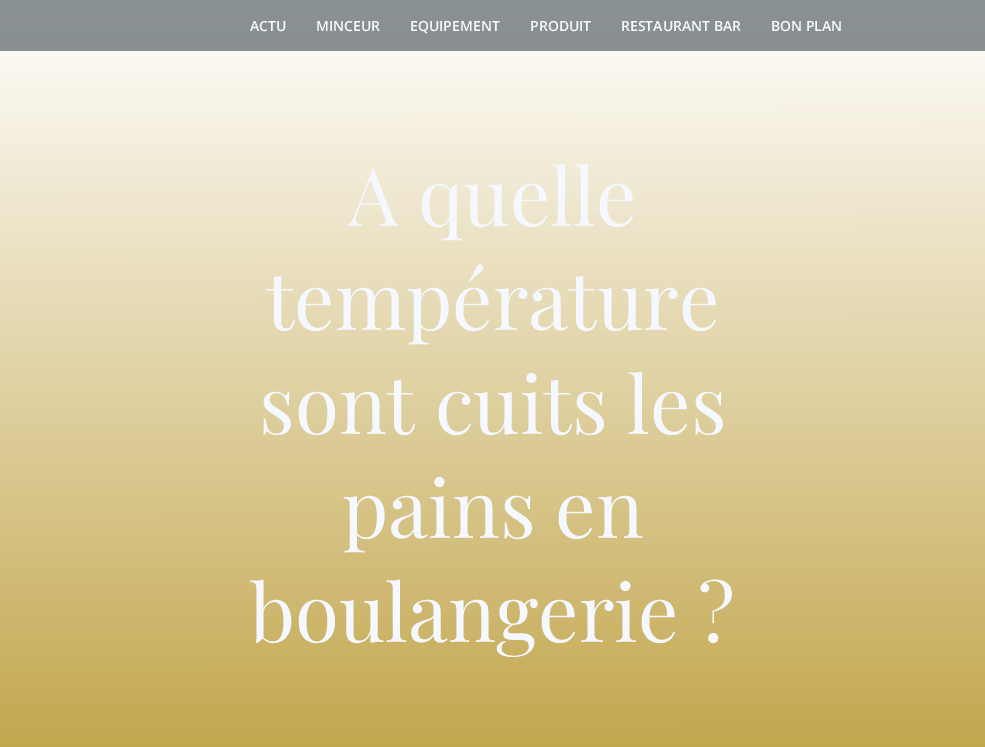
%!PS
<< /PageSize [985 747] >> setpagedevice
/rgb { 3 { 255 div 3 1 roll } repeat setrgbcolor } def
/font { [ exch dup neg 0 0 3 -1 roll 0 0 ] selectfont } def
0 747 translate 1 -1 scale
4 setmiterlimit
255 255 255 rgb
0 0 985 747 rectfill
gsave 0 51 moveto 985 51 lineto 985 747 lineto 0 747 lineto closepath clip newpath
<< /ShadingType 2 /ColorSpace /DeviceRGB /Coords [492 -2 493 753] /Extend [true true] /Function << /FunctionType 2 /Domain [0 1] /C0 [1 1 1] /C1 [0.765 0.651 0.302] /N 1 >> >> shfill grestore
gsave 0 0 moveto 985 0 lineto 985 51 lineto 0 51 lineto closepath clip newpath
<< /ShadingType 2 /ColorSpace /DeviceRGB /Coords [492 -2 493 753] /Extend [true true] /Function << /FunctionType 2 /Domain [0 1] /C0 [0.545 0.573 0.584] /C1 [0.427 0.4 0.235] /N 1 >> >> shfill grestore
/OpenSans-SemiBold 14 font
245 249 255 rgb
[
  [(ACTU) 250 31]
  [(MINCEUR) 316 31]
  [(EQUIPEMENT) 410 31]
  [(PRODUIT) 530 31]
  [(RESTAURANT BAR) 621 31]
  [(BON PLAN) 771 31]
] { aload pop moveto show } forall
/PlayfairDisplay-Regular 80 font
[
  [(A quelle) 348 226]
  [(température) 266 330]
  [(sont cuits les) 259 434]
  [(pains en) 342 538]
  [(boulangerie ?) 250 642]
] { aload pop moveto show } forall
showpage
